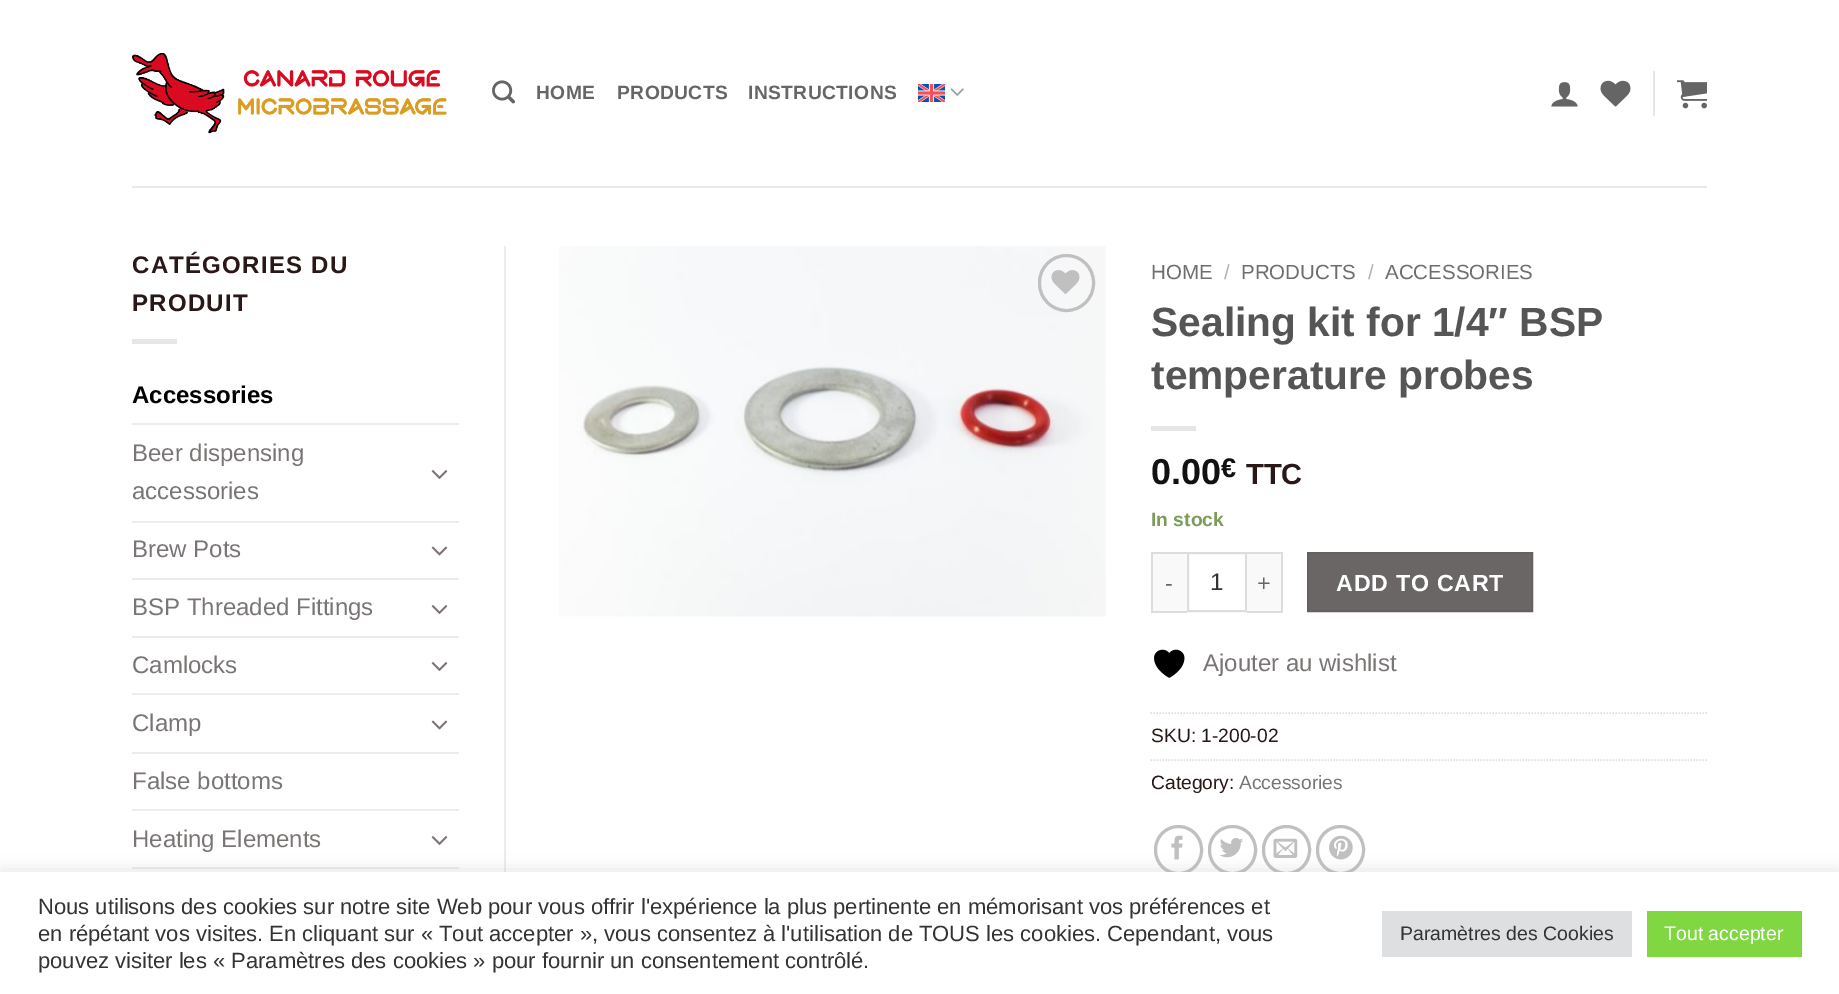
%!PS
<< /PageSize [1839 994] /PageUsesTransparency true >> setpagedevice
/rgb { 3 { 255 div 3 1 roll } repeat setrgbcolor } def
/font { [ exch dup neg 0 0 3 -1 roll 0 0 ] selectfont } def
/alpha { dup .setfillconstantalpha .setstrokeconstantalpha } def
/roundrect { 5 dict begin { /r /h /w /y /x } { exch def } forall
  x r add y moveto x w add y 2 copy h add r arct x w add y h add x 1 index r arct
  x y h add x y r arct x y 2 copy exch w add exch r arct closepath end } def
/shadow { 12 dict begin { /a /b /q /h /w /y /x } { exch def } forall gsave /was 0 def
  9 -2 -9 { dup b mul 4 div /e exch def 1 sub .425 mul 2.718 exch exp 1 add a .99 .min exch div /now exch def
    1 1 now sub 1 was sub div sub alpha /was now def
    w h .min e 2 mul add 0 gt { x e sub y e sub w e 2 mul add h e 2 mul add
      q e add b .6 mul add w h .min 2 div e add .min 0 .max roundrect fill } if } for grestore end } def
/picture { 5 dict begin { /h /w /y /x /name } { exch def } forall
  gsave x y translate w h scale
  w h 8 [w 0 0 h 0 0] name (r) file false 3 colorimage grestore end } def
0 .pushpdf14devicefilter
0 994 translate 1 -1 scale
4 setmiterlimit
255 255 255 rgb
0 0 1839 994 rectfill
(img/1.rgb) 132 53 315 81 picture
(img/2.rgb) 492 80 23 24 picture
(img/3.rgb) 918 84 27 18 picture
(img/4.rgb) 950 88 14 8 picture
(img/5.rgb) 1551 82 27 25 picture
(img/6.rgb) 1600 80 31 27 picture
230 230 230 rgb
1653 71 2 45 rectfill
(img/7.rgb) 1677 80 30 29 picture
[
  [132 186 1575 2 234 232 232]
  [132 339 45 5 230 230 230]
  [132 423 327 2 236 236 236]
] { aload pop rgb rectfill } forall
(img/8.rgb) 431 470 17 9 picture
132 521 327 2 rectfill
(img/9.rgb) 431 546 17 10 picture
132 578 327 2 rectfill
(img/8.rgb) 431 605 17 9 picture
132 636 327 2 rectfill
(img/8.rgb) 431 662 17 9 picture
132 693 327 2 rectfill
(img/9.rgb) 431 720 17 10 picture
132 752 327 2 rectfill
132 809 327 2 rectfill
(img/8.rgb) 431 836 17 9 picture
132 867 327 2 rectfill
504 246 2 626 rectfill
(img/10.rgb) 559 246 547 371 picture
192 192 192 rgb
3 setlinewidth
1039.5 255.5 54 55 27 roundrect stroke
(img/11.rgb) 1051 270 29 24 picture
[
  [1151 426 45 5 230 230 230]
  [1153 554 34 57 249 249 249]
  [1151 552 36 2 221 221 221]
  [1151 611 36 2 221 221 221]
  [1151 552 2 60 221 221 221]
] { aload pop rgb rectfill } forall
2 setlinewidth
1188 553 58 58 rectstroke
[
  [1247 554 34 57 249 249 249]
  [1247 552 36 2 221 221 221]
  [1281 552 2 60 221 221 221]
  [1247 611 36 2 221 221 221]
] { aload pop rgb rectfill } forall
106 102 102 rgb
1308 553 moveto 1532 553 lineto 1532 611 lineto 1308 611 lineto closepath gsave fill grestore
101 97 97 rgb
stroke
(img/12.rgb) 1154 649 31 29 picture
221 221 221 rgb
1.5 setlinewidth
[1.5 1.5] 0 setdash
1150.5 713 moveto 1707 713 lineto stroke
1150.5 760 moveto 1707 760 lineto stroke
192 192 192 rgb
3 setlinewidth
[] 0 setdash
1155.5 826.5 46 47 23 roundrect stroke
(img/13.rgb) 1171 835 12 25 picture
1209.5 826.5 46 47 23 roundrect stroke
(img/14.rgb) 1220 838 23 20 picture
1263.5 826.5 46 47 23 roundrect stroke
(img/15.rgb) 1273 838 25 20 picture
1317.5 826.5 46 47 23 roundrect stroke
(img/16.rgb) 1329 835 24 25 picture
172 171 171 rgb
0 870 1839 123 0 7.5 0.3 shadow
[
  [0 872 1839 122 255 255 255]
  [1382 911 250 46 222 223 224]
  [1647 911 155 46 129 215 66]
] { aload pop rgb rectfill } forall
/LiberationSans-Bold 19.25 font
102 102 102 rgb
536 99 moveto 0.4 0 (HOME) ashow
617 99 moveto 0.4 0 (PRODUCTS) ashow
748 99 moveto 0.4 0 (INSTRUCTIONS) ashow
/LiberationSans-Bold 24 font
42 23 23 rgb
132 273 moveto 1.25 0 (CATÉGORIES DU) ashow
132 311 moveto 1.25 0 (PRODUIT) ashow
0 0 0 rgb
132 403 moveto (Accessories) show
/LiberationSans-Regular 24 font
122 117 117 rgb
[
  [(Beer dispensing) 132 461]
  [(accessories) 132 499]
  [(Brew Pots) 132 557]
  [(BSP Threaded Fittings) 132 615]
  [(Camlocks) 132 673]
  [(Clamp) 132 731]
  [(False bottoms) 132 789]
  [(Heating Elements) 132 847]
] { aload pop moveto show } forall
/LiberationSans-Regular 20.5 font
110 110 110 rgb
1151 279 moveto (HOME) show
178 178 178 rgb
1224 279 moveto (/) show
110 110 110 rgb
1241 279 moveto (PRODUCTS) show
178 178 178 rgb
1368 279 moveto (/) show
110 110 110 rgb
1385 279 moveto (ACCESSORIES) show
/LiberationSans-Bold 40.75 font
85 85 85 rgb
1151 336 moveto (Sealing kit for 1/4″ BSP) show
1151 389 moveto (temperature probes) show
/LiberationSans-Bold 36 font
17 17 17 rgb
1151 484 moveto (0.00) show
/LiberationSans-Bold 27 font
1221 477 moveto (€) show
/LiberationSans-Bold 29 font
42 23 23 rgb
1246 484 moveto (TTC) show
/LiberationSans-Bold 19.25 font
122 156 89 rgb
1151 526 moveto (In stock) show
/LiberationSans-Regular 23.25 font
102 102 102 rgb
1165 591 moveto 0.75 0 (-) ashow
/LiberationSans-Regular 24 font
51 51 51 rgb
1210 590 moveto (1) show
/LiberationSans-Regular 23.25 font
102 102 102 rgb
1257 591 moveto 0.75 0 (+) ashow
/LiberationSans-Bold 23.25 font
255 255 255 rgb
1336 591 moveto 0.75 0 (ADD TO CART) ashow
/LiberationSans-Regular 24 font
122 117 117 rgb
1203 671 moveto (Ajouter au wishlist) show
/LiberationSans-Regular 19.25 font
42 23 23 rgb
1151 742 moveto (SKU: 1-200-02) show
1151 789 moveto (Category:) show
122 117 117 rgb
1239 789 moveto (Accessories) show
/LiberationSans-Regular 22 font
51 51 51 rgb
[
  [(Nous utilisons des cookies sur notre site Web pour vous offrir l'expérience la plus pertinente en mémorisant vos préférences et) 38 914]
  [(en répétant vos visites. En cliquant sur « Tout accepter », vous consentez à l'utilisation de TOUS les cookies. Cependant, vous) 38 941]
  [(pouvez visiter les « Paramètres des cookies » pour fournir un consentement contrôlé.) 38 968]
] { aload pop moveto show } forall
/LiberationSans-Regular 19.5 font
1400 940 moveto (Paramètres des Cookies) show
255 255 255 rgb
1664 940 moveto (Tout accepter) show
.poppdf14devicefilter showpage
